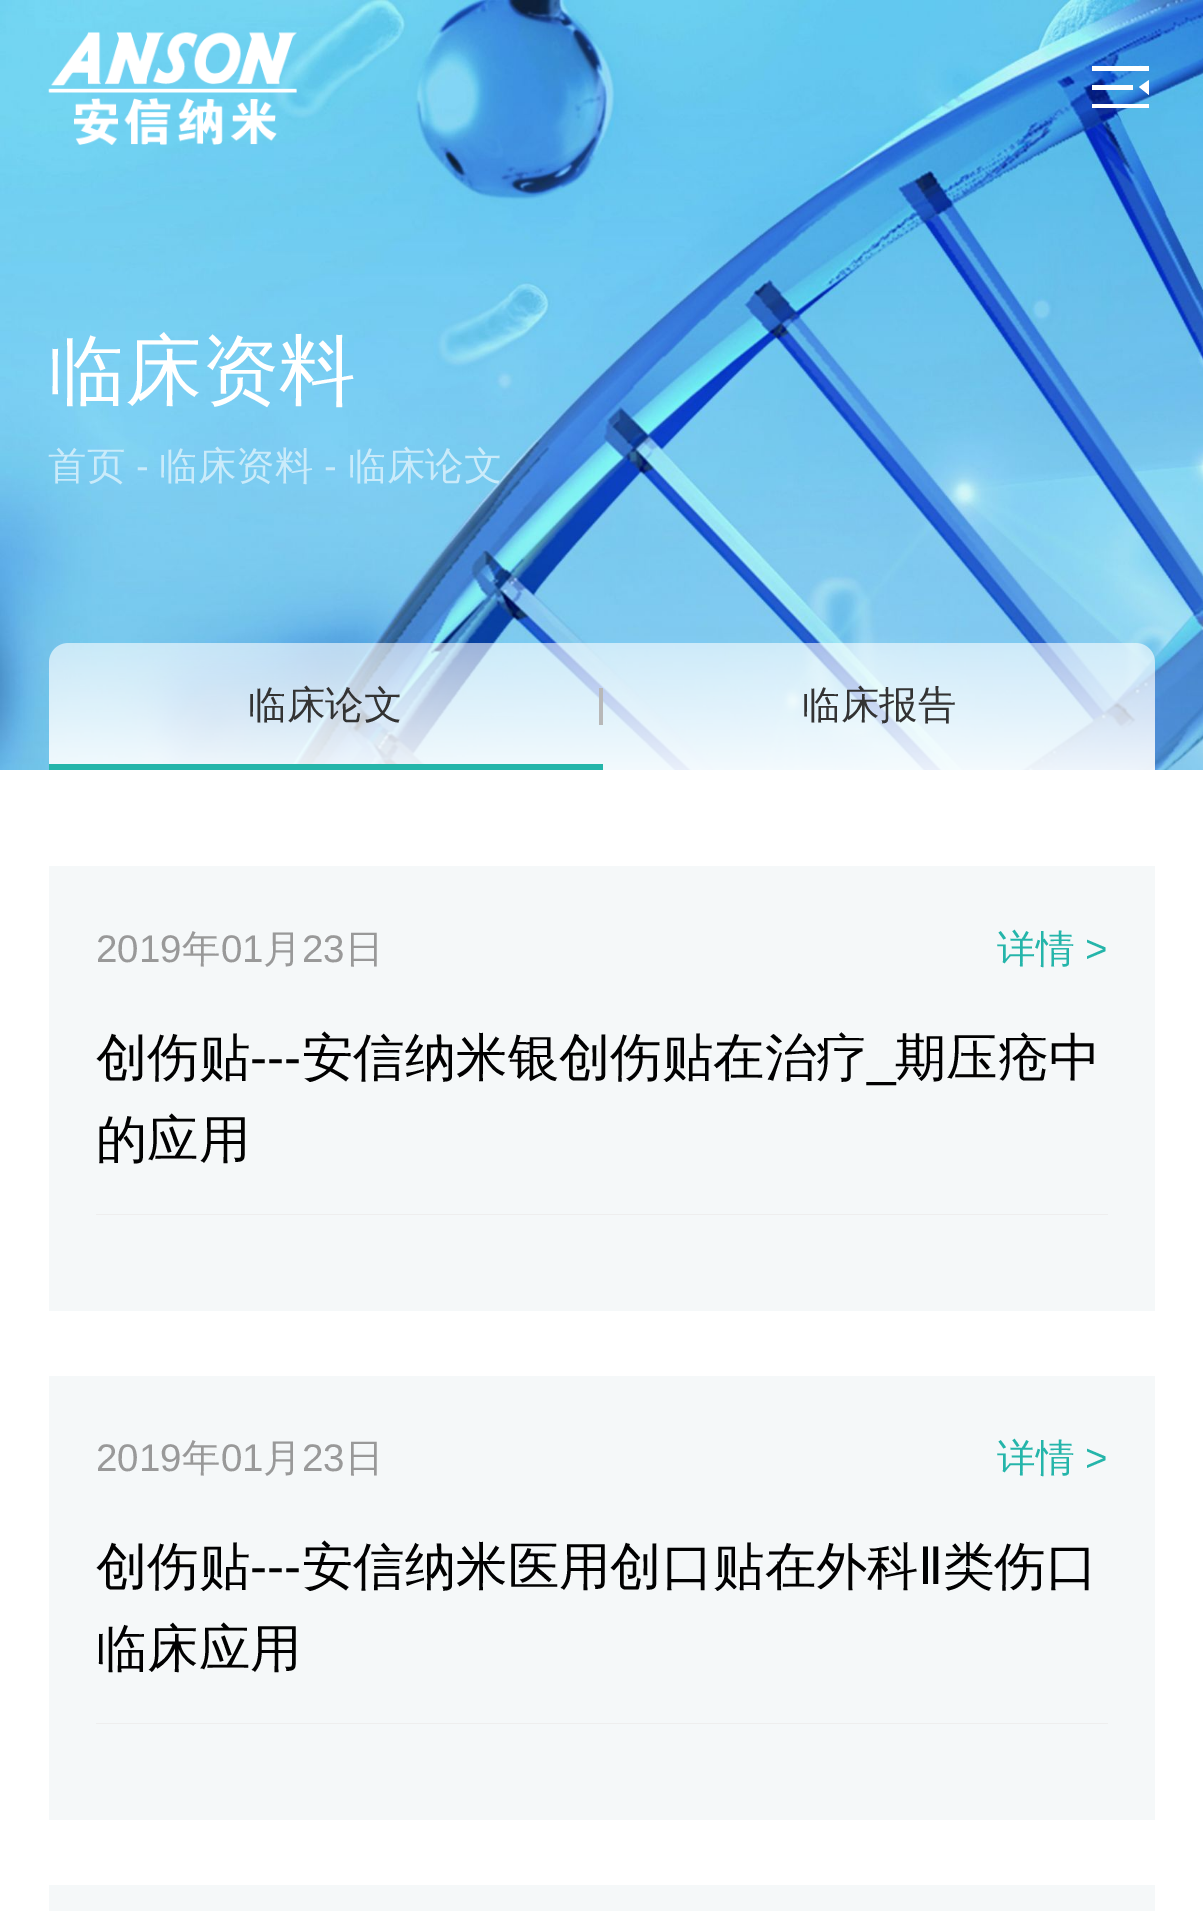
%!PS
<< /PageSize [1203 1911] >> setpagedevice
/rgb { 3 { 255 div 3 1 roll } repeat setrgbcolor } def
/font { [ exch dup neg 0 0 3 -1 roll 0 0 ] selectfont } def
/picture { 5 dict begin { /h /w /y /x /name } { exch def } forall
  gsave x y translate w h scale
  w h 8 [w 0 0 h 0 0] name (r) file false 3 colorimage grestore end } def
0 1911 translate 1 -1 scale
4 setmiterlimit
255 255 255 rgb
0 0 1203 1911 rectfill
(img/2.rgb) 0 0 1203 770 picture
(img/1.rgb) 48 32 249 113 picture
1092 66 moveto 1149 66 lineto 1149 71 lineto 1092 71 lineto closepath 1092 104 moveto 1149 104 lineto 1149 108 lineto 1092 108 lineto closepath 1092 85 moveto 1133 85 lineto 1133 90 lineto 1092 90 lineto closepath 1139 87 moveto 1149 95 lineto 1149 80 lineto closepath fill
[
  [49 764 554 6 36 181 170]
  [599 688 4 37 184 184 184]
  [49 866 1106 445 245 248 249]
  [96 1214 1012 1 238 238 238]
  [49 1376 1106 444 245 248 249]
  [96 1723 1012 1 238 238 238]
  [49 1885 1106 26 245 248 249]
] { aload pop rgb rectfill } forall
/WenQuanYiZenHei-Medium 77 font
255 255 255 rgb
48 397 moveto (临床资料) show
/WenQuanYiZenHei-Medium 38.5 font
202 235 250 rgb
48 479 moveto (首页) show
/LiberationSans-Regular 38.5 font
136 479 moveto (-) show
/WenQuanYiZenHei-Medium 38.5 font
159 479 moveto (临床资料) show
/LiberationSans-Regular 38.5 font
324 479 moveto (-) show
/WenQuanYiZenHei-Medium 38.5 font
348 479 moveto (临床论文) show
51 51 51 rgb
248 718 moveto (临床论文) show
802 718 moveto (临床报告) show
/LiberationSans-Regular 38.5 font
153 153 153 rgb
96 962 moveto (2019) show
/WenQuanYiZenHei-Medium 38.5 font
182 962 moveto (年) show
/LiberationSans-Regular 38.5 font
221 962 moveto (01) show
/WenQuanYiZenHei-Medium 38.5 font
263 962 moveto (月) show
/LiberationSans-Regular 38.5 font
302 962 moveto (23) show
/WenQuanYiZenHei-Medium 38.5 font
345 962 moveto (日) show
36 181 170 rgb
997 962 moveto (详情) show
/LiberationSans-Regular 38.5 font
1085 962 moveto (>) show
/WenQuanYiZenHei-Medium 51.4 font
1 1 1 rgb
96 1075 moveto (创伤贴) show
/LiberationSans-Regular 51.4 font
250 1075 moveto (---) show
/WenQuanYiZenHei-Medium 51.4 font
302 1075 moveto (安信纳米银创伤贴在治疗) show
895 1075 moveto (期压疮中) show
/LiberationSans-Regular 51.4 font
867 1075 moveto (_) show
/WenQuanYiZenHei-Medium 51.4 font
96 1157 moveto (的应用) show
/LiberationSans-Regular 38.5 font
153 153 153 rgb
96 1471 moveto (2019) show
/WenQuanYiZenHei-Medium 38.5 font
182 1471 moveto (年) show
/LiberationSans-Regular 38.5 font
221 1471 moveto (01) show
/WenQuanYiZenHei-Medium 38.5 font
263 1471 moveto (月) show
/LiberationSans-Regular 38.5 font
302 1471 moveto (23) show
/WenQuanYiZenHei-Medium 38.5 font
345 1471 moveto (日) show
36 181 170 rgb
997 1471 moveto (详情) show
/LiberationSans-Regular 38.5 font
1085 1471 moveto (>) show
/WenQuanYiZenHei-Medium 51.4 font
1 1 1 rgb
96 1584 moveto (创伤贴) show
/LiberationSans-Regular 51.4 font
250 1584 moveto (---) show
/WenQuanYiZenHei-Medium 51.4 font
302 1584 moveto (安信纳米医用创口贴在外科) show
/DejaVuSans-Regular 51.4 font
918 1584 moveto (Ⅱ) show
/WenQuanYiZenHei-Medium 51.4 font
943 1584 moveto (类伤口) show
96 1666 moveto (临床应用) show
showpage
